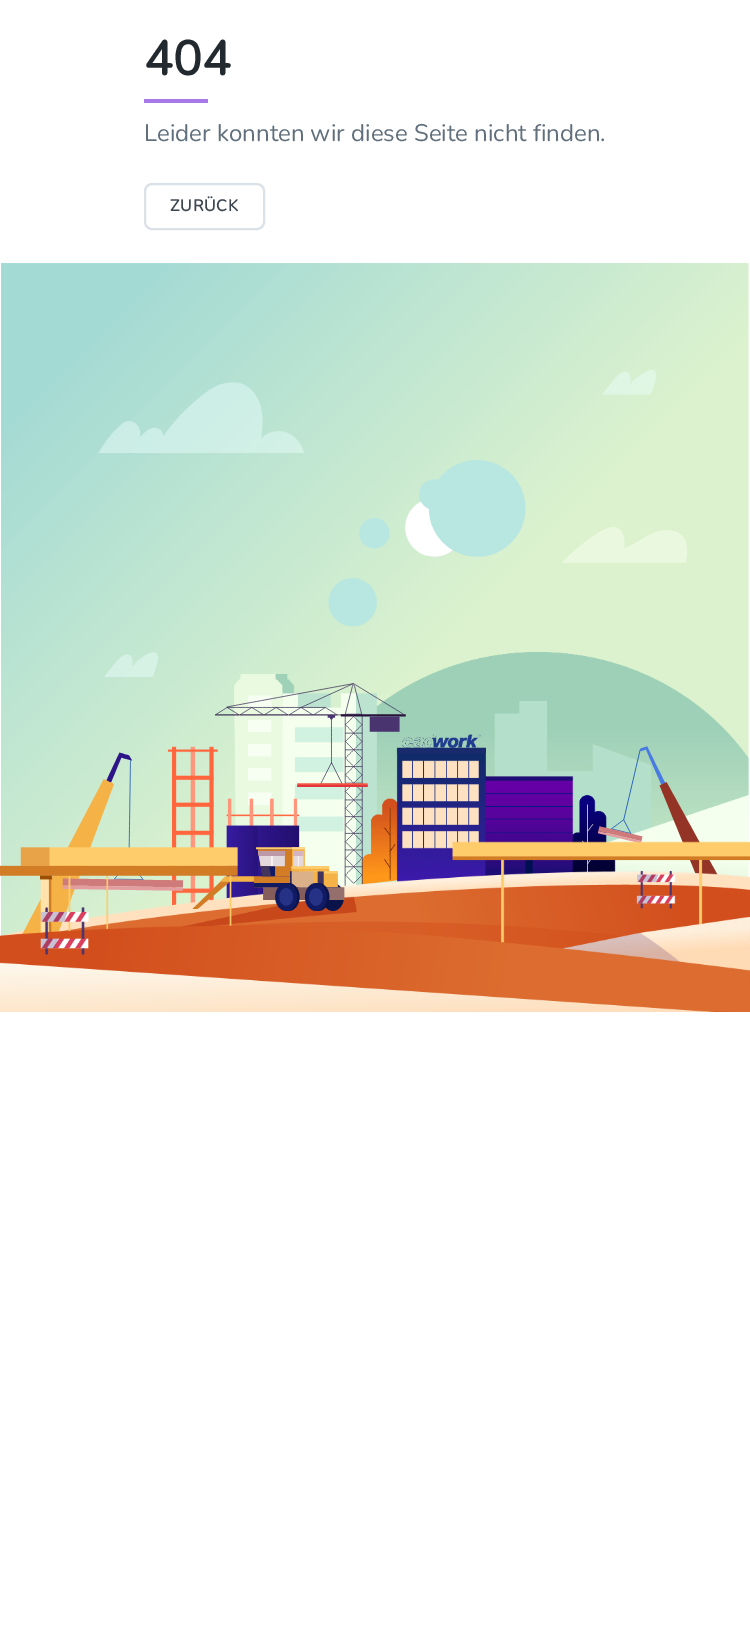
%!PS
<< /PageSize [750 1643] >> setpagedevice
/rgb { 3 { 255 div 3 1 roll } repeat setrgbcolor } def
/font { [ exch dup neg 0 0 3 -1 roll 0 0 ] selectfont } def
/roundrect { 5 dict begin { /r /h /w /y /x } { exch def } forall
  x r add y moveto x w add y 2 copy h add r arct x w add y h add x 1 index r arct
  x y h add x y r arct x y 2 copy exch w add exch r arct closepath end } def
/picture { 5 dict begin { /h /w /y /x /name } { exch def } forall
  gsave x y translate w h scale
  w h 8 [w 0 0 h 0 0] name (r) file false 3 colorimage grestore end } def
0 1643 translate 1 -1 scale
4 setmiterlimit
255 255 255 rgb
0 0 750 1643 rectfill
167 121 233 rgb
144 99 64 4 rectfill
218 225 231 rgb
2 setlinewidth
145 184 119 45 7 roundrect stroke
(img/1.rgb) 0 263 750 749 picture
/Nunito-Bold 48 font
34 41 47 rgb
144 75 moveto (404) show
/Nunito-ExtraLight 24 font
96 111 123 rgb
144 141 moveto (Leider konnten wir diese Seite nicht finden.) show
/Nunito-Bold 16 font
61 72 82 rgb
170 211 moveto 0.75 0 (ZURÜCK) ashow
showpage
